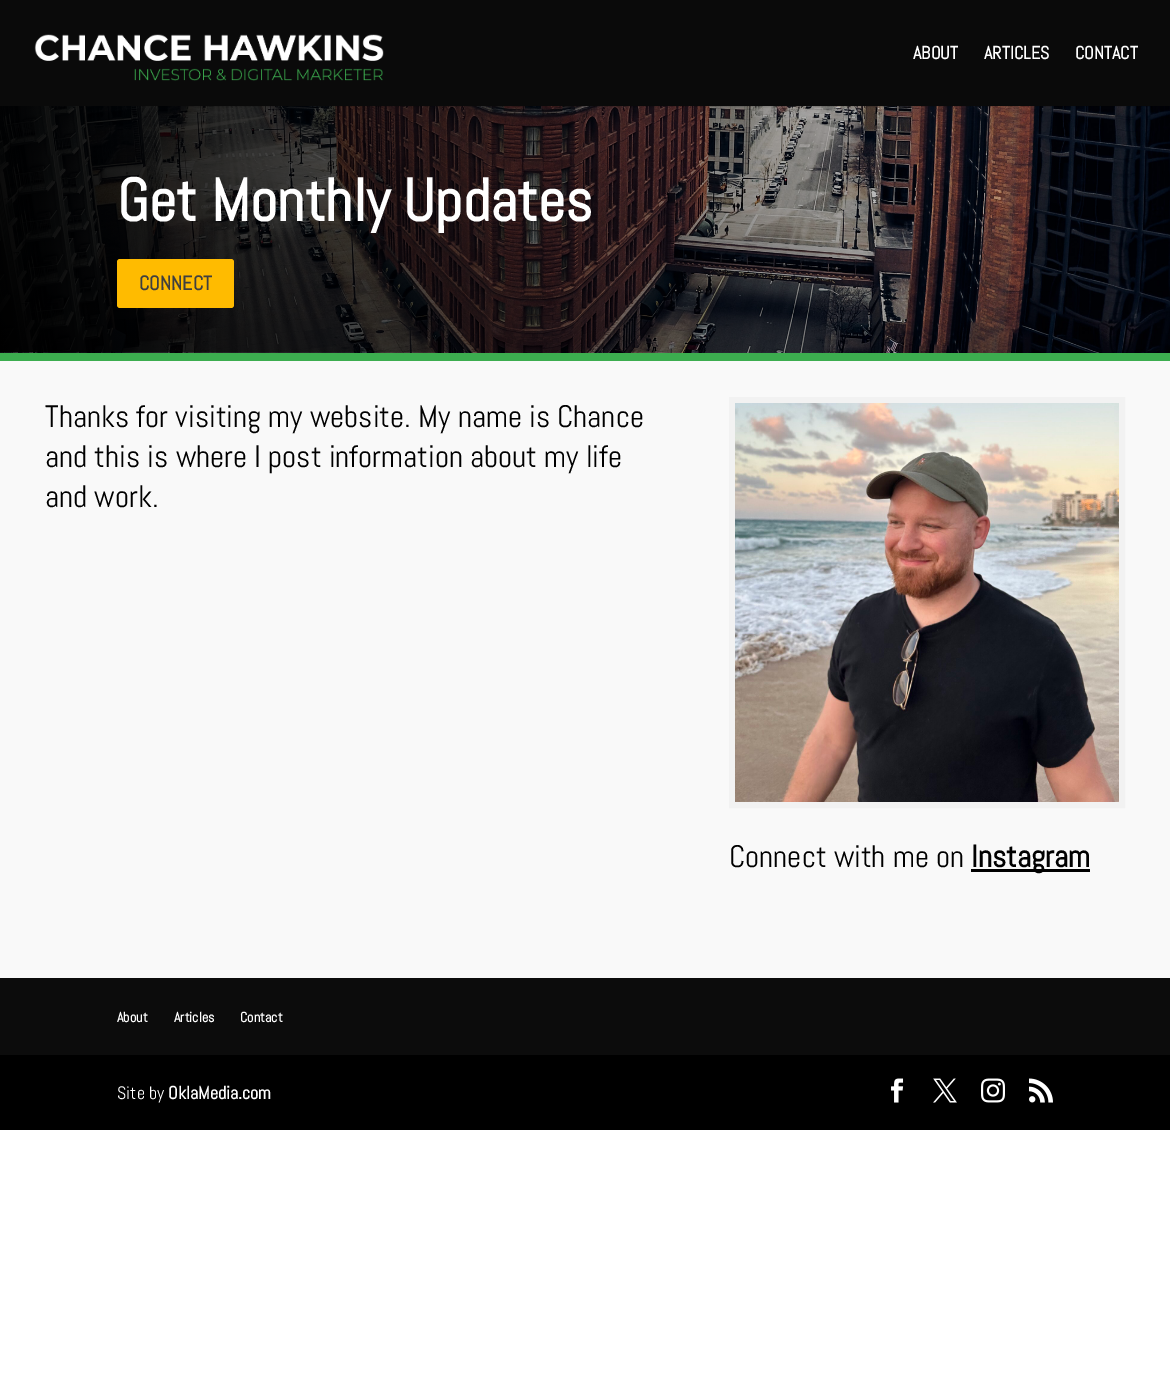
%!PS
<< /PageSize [1170 1374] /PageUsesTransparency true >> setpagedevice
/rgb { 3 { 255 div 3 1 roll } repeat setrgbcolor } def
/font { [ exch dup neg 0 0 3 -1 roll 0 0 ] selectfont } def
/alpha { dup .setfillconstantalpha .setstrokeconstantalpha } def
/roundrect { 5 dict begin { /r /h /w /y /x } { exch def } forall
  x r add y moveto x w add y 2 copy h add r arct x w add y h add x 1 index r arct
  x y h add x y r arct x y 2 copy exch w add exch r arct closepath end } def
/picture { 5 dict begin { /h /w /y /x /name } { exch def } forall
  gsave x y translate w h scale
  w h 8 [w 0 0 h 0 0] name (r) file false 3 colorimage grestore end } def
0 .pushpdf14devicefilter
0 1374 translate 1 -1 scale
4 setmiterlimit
255 255 255 rgb
0 0 1170 1374 rectfill
(img/2.rgb) 0 106 1170 247 picture
0.1 alpha
0 0 0 rgb
141 106 1009 1 rectfill
1 alpha
10 10 10 rgb
0 0 1170 106 rectfill
(img/1.rgb) 34 34 350 47 picture
255 187 0 rgb
117 259 117 49 3 roundrect fill
249 249 249 rgb
0 361 1170 617 rectfill
60 173 79 rgb
0 353 1170 8 rectfill
242 242 242 rgb
6 setlinewidth
732 400 390 405 rectstroke
(img/3.rgb) 735 403 384 399 picture
[
  [971 869 119 3 0 0 0]
  [0 978 1170 77 12 12 12]
  [0 1055 1170 75 0 0 0]
] { aload pop rgb rectfill } forall
(img/4.rgb) 891 1078 13 25 picture
(img/5.rgb) 933 1078 24 25 picture
(img/6.rgb) 981 1078 24 25 picture
(img/7.rgb) 1029 1078 24 25 picture
/Abel-Bold 18 font
255 255 255 rgb
[
  [(ABOUT) 913 59]
  [(ARTICLES) 984 59]
  [(CONTACT) 1075 59]
] { aload pop moveto show } forall
/Abel-Bold 60 font
117 221 moveto (Get Monthly Updates) show
/Abel-Bold 20 font
63 63 63 rgb
139 290 moveto (CONNECT) show
/Abel-Regular 31 font
0 0 0 rgb
[
  [(Thanks for visiting my website. My name is Chance) 45 427]
  [(and this is where I post information about my life) 45 467]
  [(and work.) 45 507]
  [(Connect with me on) 729 867]
] { aload pop moveto show } forall
/Abel-Bold 31 font
971 867 moveto (Instagram) show
/Abel-Bold 14 font
255 255 255 rgb
[
  [(About) 117 1022]
  [(Articles) 174 1022]
  [(Contact) 240 1022]
] { aload pop moveto show } forall
/Abel-Regular 18 font
117 1099 moveto (Site by) show
/Abel-Bold 18 font
168 1099 moveto (OklaMedia.com) show
.poppdf14devicefilter showpage
